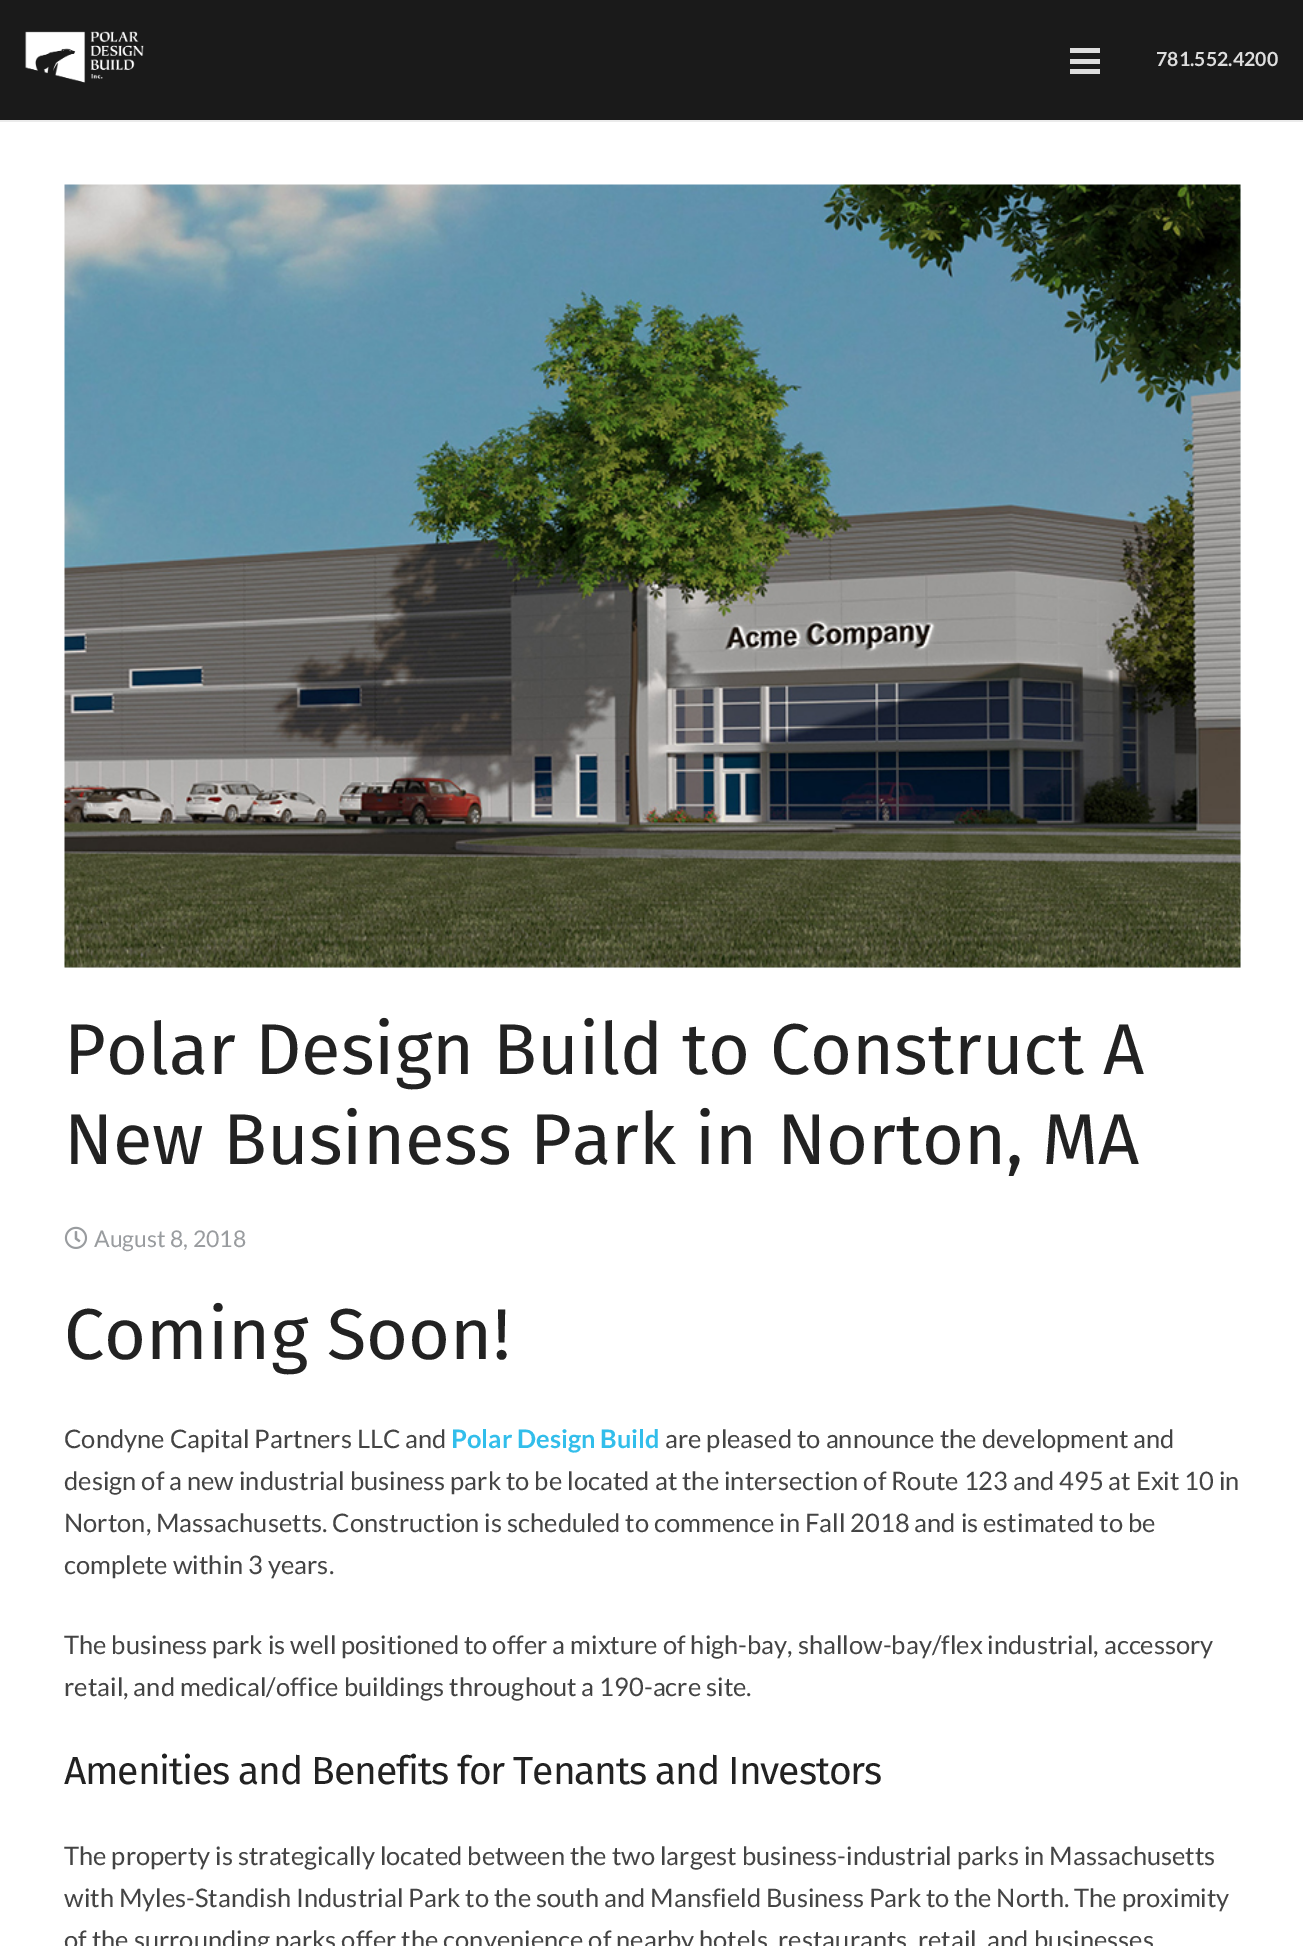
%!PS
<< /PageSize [1303 1946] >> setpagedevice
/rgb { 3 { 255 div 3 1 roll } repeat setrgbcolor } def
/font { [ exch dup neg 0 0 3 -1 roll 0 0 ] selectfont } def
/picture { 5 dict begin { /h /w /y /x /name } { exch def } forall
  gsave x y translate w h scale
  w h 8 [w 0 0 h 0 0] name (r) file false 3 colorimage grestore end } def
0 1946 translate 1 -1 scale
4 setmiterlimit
255 255 255 rgb
0 0 1303 1946 rectfill
235 235 235 rgb
0 120 moveto 0 122 lineto 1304 122 lineto 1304 2 lineto 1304 120 lineto closepath fill
26 26 26 rgb
0 0 1303 120 rectfill
(img/1.rgb) 25 31 119 52 picture
[
  [1070 59 30 5 221 221 221]
  [1070 48 30 5 221 221 221]
  [1070 69 30 5 221 221 221]
  [65 185 1176 783 237 241 242]
] { aload pop rgb rectfill } forall
(img/2.rgb) 64 184 1177 784 picture
(img/3.rgb) 64 1226 24 23 picture
/Lato-Bold 19.5 font
221 221 221 rgb
1156 66 moveto (781.552.4200) show
/FiraSans-Regular 72 font
34 34 34 rgb
64 1074 moveto (Polar Design Build to Construct A) show
64 1164 moveto (New Business Park in Norton, MA) show
/Lato-Regular 23 font
153 156 159 rgb
94 1247 moveto (August 8, 2018) show
/FiraSans-Regular 72 font
34 34 34 rgb
64 1359 moveto (Coming Soon!) show
/Lato-Regular 25.5 font
68 68 68 rgb
64 1448 moveto (Condyne Capital Partners LLC and) show
/Lato-Bold 25.5 font
50 190 235 rgb
451 1448 moveto (Polar Design Build) show
/Lato-Regular 25.5 font
68 68 68 rgb
[
  [(are pleased to announce the development and) 665 1448]
  [(design of a new industrial business park to be located at the intersection of Route 123 and 495 at Exit 10 in) 64 1490]
  [(Norton, Massachusetts. Construction is scheduled to commence in Fall 2018 and is estimated to be) 64 1532]
  [(complete within 3 years.) 64 1574]
  [(The business park is well positioned to offer a mixture of high-bay, shallow-bay/flex industrial, accessory) 64 1654]
  [(retail, and medical/office buildings throughout a 190-acre site.) 64 1696]
] { aload pop moveto show } forall
/FiraSans-Regular 39 font
34 34 34 rgb
64 1784 moveto -1.15 0 (Amenities and Benefits for Tenants and Investors) ashow
/Lato-Regular 25.5 font
68 68 68 rgb
[
  [(The property is strategically located between the two largest business-industrial parks in Massachusetts) 64 1865]
  [(with Myles-Standish Industrial Park to the south and Mansfield Business Park to the North. The proximity) 64 1907]
  [(of the surrounding parks offer the convenience of nearby hotels, restaurants, retail, and businesses) 64 1949]
] { aload pop moveto show } forall
showpage
